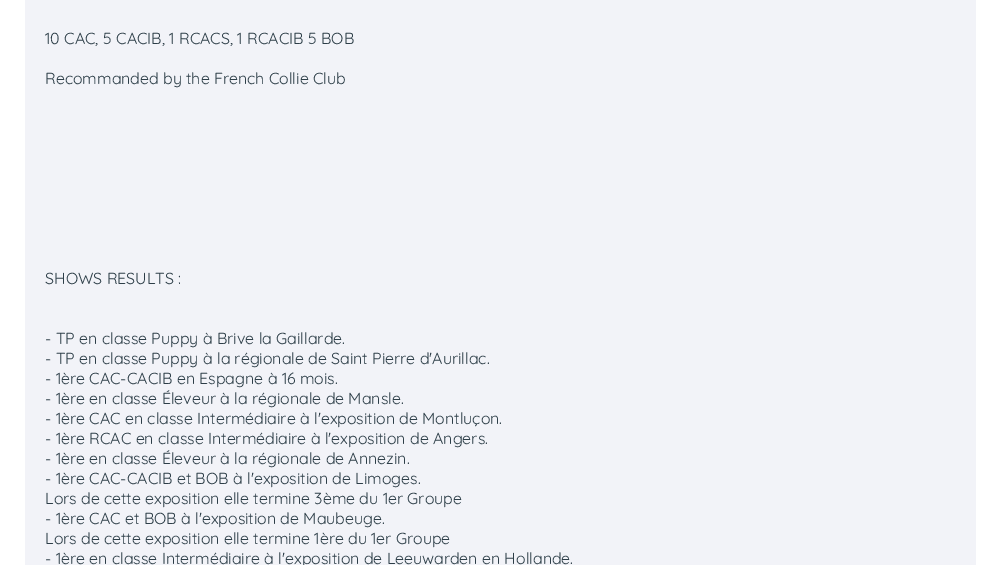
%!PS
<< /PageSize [1001 565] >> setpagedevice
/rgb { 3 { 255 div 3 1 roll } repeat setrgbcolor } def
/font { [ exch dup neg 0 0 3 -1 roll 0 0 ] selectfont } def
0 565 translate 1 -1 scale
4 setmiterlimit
255 255 255 rgb
0 0 1001 565 rectfill
242 243 248 rgb
25 0 951 565 rectfill
/Quicksand-Light 16 font
45 62 72 rgb
[
  [(10 CAC, 5 CACIB, 1 RCACS, 1 RCACIB 5 BOB) 45 44]
  [(Recommanded by the French Collie Club) 45 84]
  [(SHOWS RESULTS :) 45 284]
  [(- TP en classe Puppy à Brive la Gaillarde.) 45 344]
  [(- TP en classe Puppy à la régionale de Saint Pierre d'Aurillac.) 45 364]
  [(- 1ère CAC-CACIB en Espagne à 16 mois.) 45 384]
  [(- 1ère en classe Éleveur à la régionale de Mansle.) 45 404]
  [(- 1ère CAC en classe Intermédiaire à l'exposition de Montluçon.) 45 424]
  [(- 1ère RCAC en classe Intermédiaire à l'exposition de Angers.) 45 444]
  [(- 1ère en classe Éleveur à la régionale de Annezin.) 45 464]
  [(- 1ère CAC-CACIB et BOB à l'exposition de Limoges.) 45 484]
  [(Lors de cette exposition elle termine 3ème du 1er Groupe) 45 504]
  [(- 1ère CAC et BOB à l'exposition de Maubeuge.) 45 524]
  [(Lors de cette exposition elle termine 1ère du 1er Groupe) 45 544]
  [(- 1ère en classe Intermédiaire à l'exposition de Leeuwarden en Hollande.) 45 564]
] { aload pop moveto show } forall
showpage
